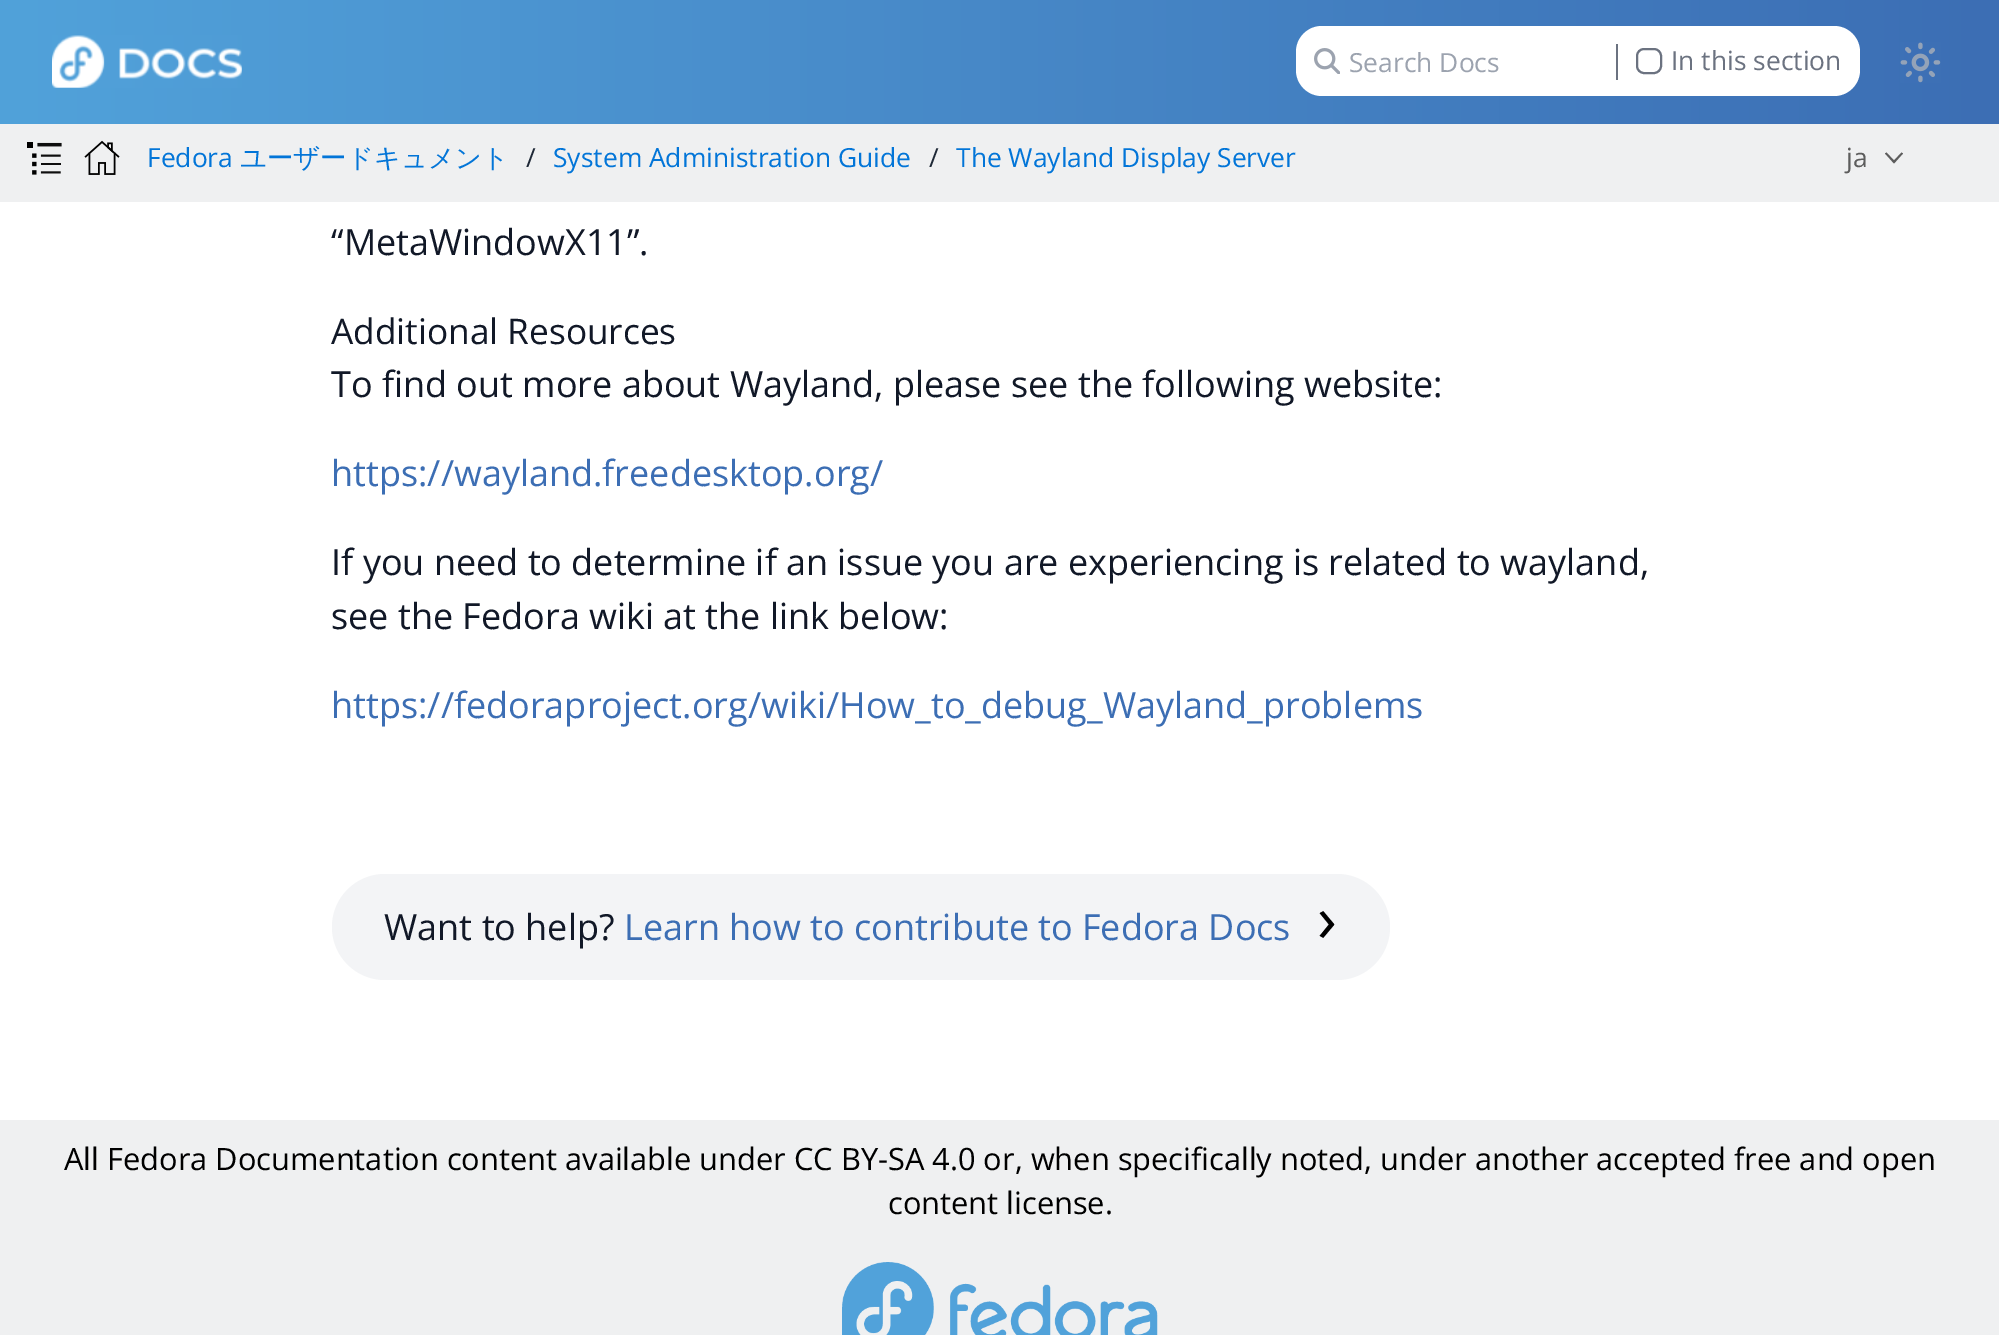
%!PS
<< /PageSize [1999 1335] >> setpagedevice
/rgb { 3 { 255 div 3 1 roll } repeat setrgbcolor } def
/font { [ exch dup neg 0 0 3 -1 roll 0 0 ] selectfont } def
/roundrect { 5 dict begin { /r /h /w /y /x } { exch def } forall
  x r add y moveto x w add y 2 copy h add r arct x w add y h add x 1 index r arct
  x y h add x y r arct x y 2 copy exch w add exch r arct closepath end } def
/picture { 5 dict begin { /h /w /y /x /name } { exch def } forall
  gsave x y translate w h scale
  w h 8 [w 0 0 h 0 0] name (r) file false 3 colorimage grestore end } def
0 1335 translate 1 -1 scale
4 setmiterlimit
255 255 255 rgb
0 0 1999 1335 rectfill
gsave 0 0 moveto 1999 0 lineto 1999 124 lineto 0 124 lineto closepath clip newpath
<< /ShadingType 2 /ColorSpace /DeviceRGB /Coords [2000 62 0 62] /Extend [true true] /Function << /FunctionType 2 /Domain [0 1] /C0 [0.235 0.431 0.706] /C1 [0.318 0.635 0.855] /N 1 >> >> shfill grestore
(img/1.rgb) 52 35 190 53 picture
1296 26 564 70 26 roundrect fill
(img/2.rgb) 1314 48 26 26 picture
107 114 128 rgb
1616 44 2 36 rectfill
2 setlinewidth
1637 49 24 24 7 roundrect stroke
(img/3.rgb) 1900 42 41 41 picture
239 240 241 rgb
0 124 1999 78 rectfill
(img/4.rgb) 27 142 35 33 picture
(img/5.rgb) 84 140 36 35 picture
93 93 93 rgb
1886.5 152.5 moveto 1885 153.5 lineto 1894 163.5 lineto 1903 153.5 lineto 1901.5 152.5 lineto 1894 160.5 lineto closepath fill
243 244 246 rgb
332 874 1058 106 53 roundrect fill
239 240 241 rgb
0 1120 1999 215 rectfill
(img/6.rgb) 842 1262 316 73 picture
/OpenSans-Regular 26.4 font
156 163 175 rgb
1349 72 moveto (Search Docs) show
107 114 128 rgb
1671 70 moveto (In this section) show
2 117 216 rgb
147 167 moveto (Fedora) show
/WenQuanYiZenHei-Medium 26.4 font
240 167 moveto (ユーザードキュメント) show
/OpenSans-Regular 26.4 font
31 41 55 rgb
526 167 moveto (/) show
2 117 216 rgb
553 167 moveto (System Administration Guide) show
31 41 55 rgb
929 167 moveto (/) show
2 117 216 rgb
956 167 moveto (The Wayland Display Server) show
93 93 93 rgb
1846 167 moveto (ja) show
/OpenSans-Regular 36 font
17 24 39 rgb
331 255 moveto (“MetaWindowX11”.) show
/OpenSans-Regular 35.25 font
331 344 moveto (Additional Resources) show
/OpenSans-Regular 36 font
331 397 moveto (To find out more about Wayland, please see the following website:) show
60 110 180 rgb
331 486 moveto (https://wayland.freedesktop.org/) show
17 24 39 rgb
331 575 moveto (If you need to determine if an issue you are experiencing is related to wayland,) show
331 629 moveto (see the Fedora wiki at the link below:) show
60 110 180 rgb
331 718 moveto (https://fedoraproject.org/wiki/How_to_debug_Wayland_problems) show
17 24 39 rgb
384 940 moveto (Want to help?) show
60 110 180 rgb
624 940 moveto (Learn how to contribute to Fedora Docs) show
/OpenSans-Regular 66 font
0 0 0 rgb
1317 942 moveto (›) show
/OpenSans-Regular 30.8 font
[
  [(All Fedora Documentation content available under) 64 1170]
  [(CC BY-SA 4.0 or, when specifically noted, under another) 794 1170]
  [(accepted free and open) 1596 1170]
  [(content license.) 888 1214]
] { aload pop moveto show } forall
showpage
